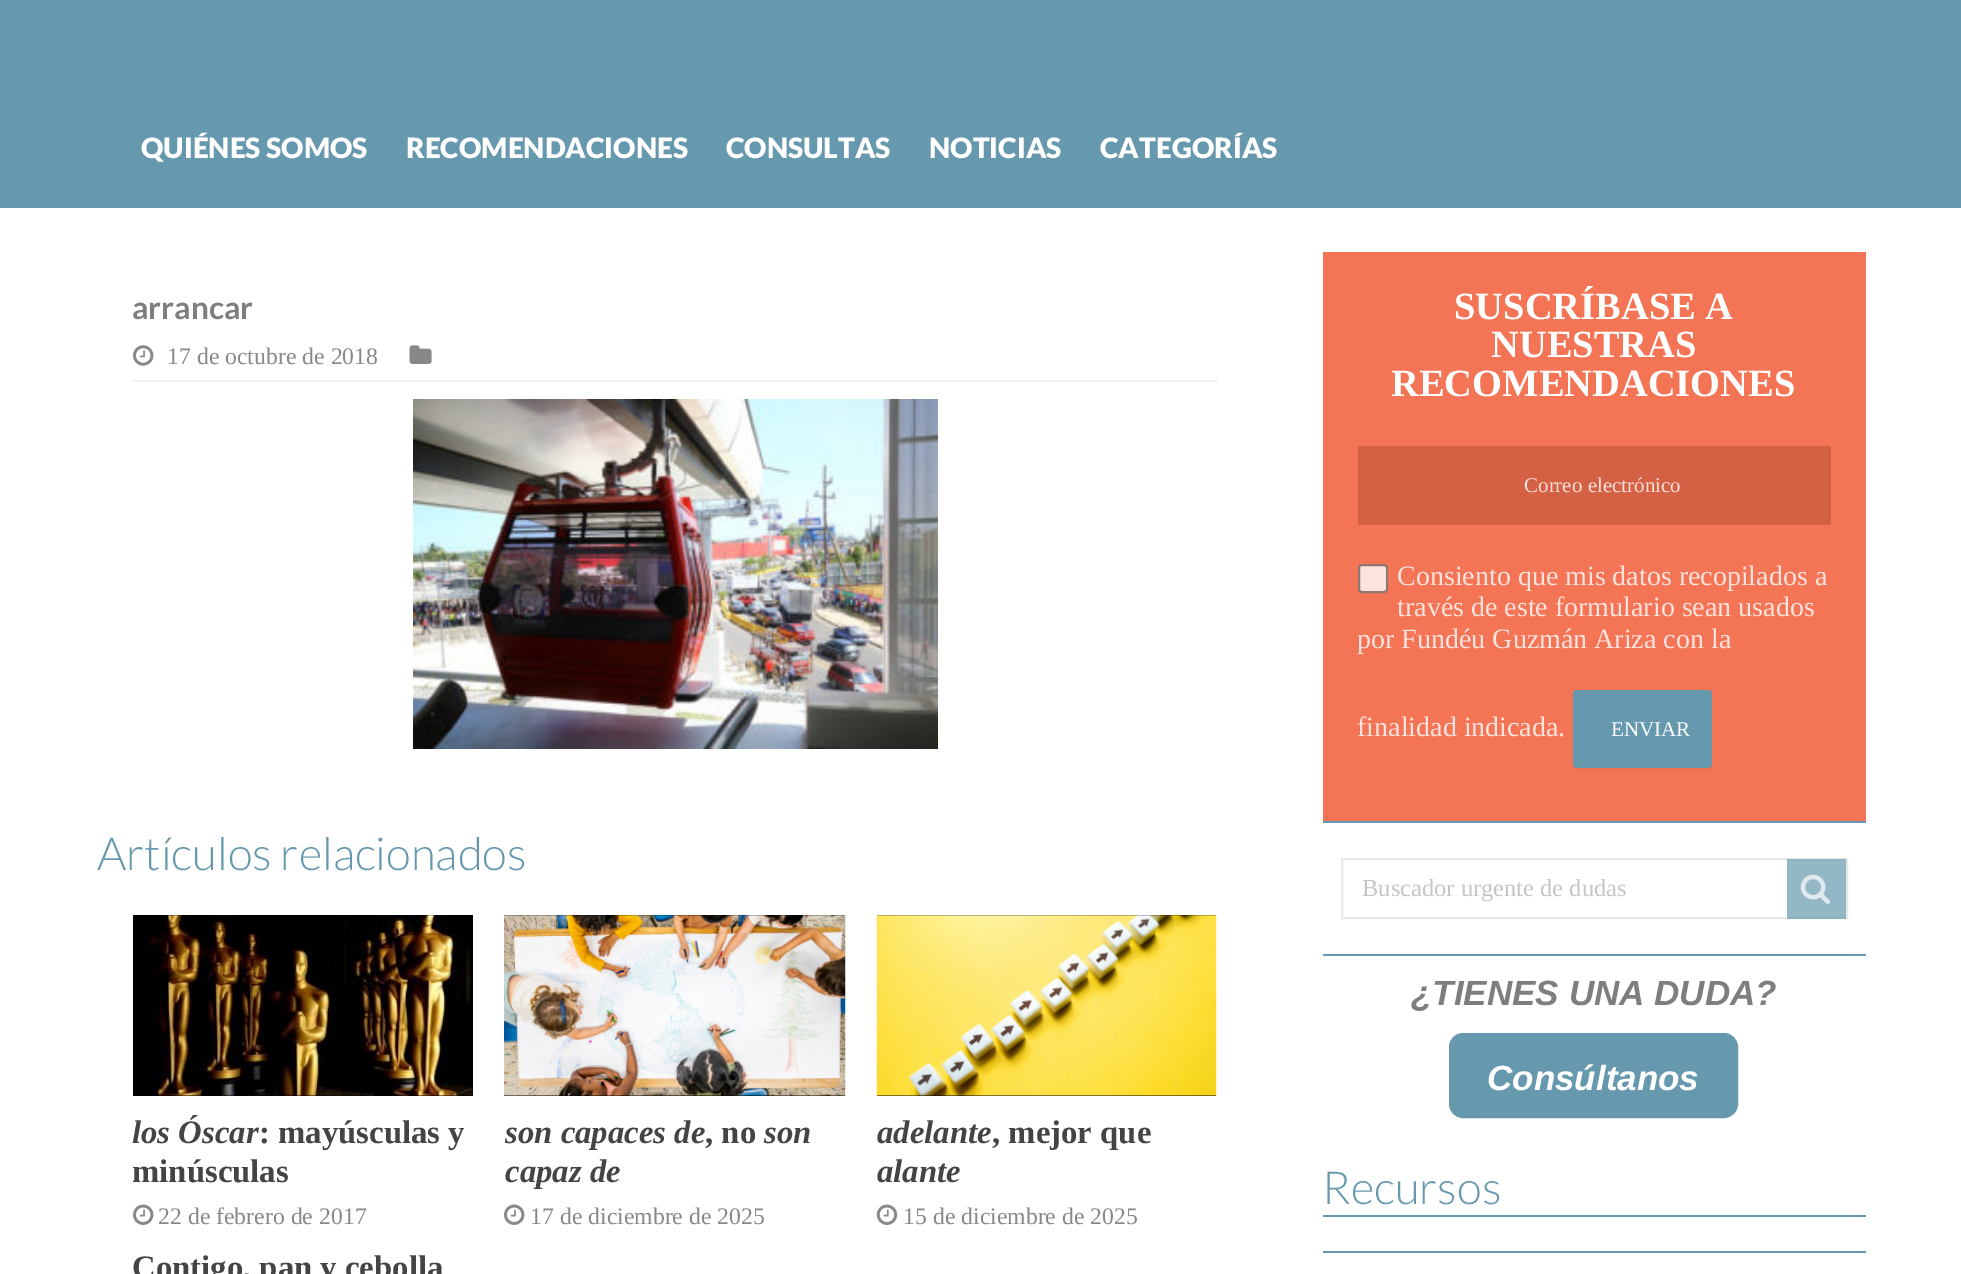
%!PS
<< /PageSize [1961 1274] /PageUsesTransparency true >> setpagedevice
/rgb { 3 { 255 div 3 1 roll } repeat setrgbcolor } def
/font { [ exch dup neg 0 0 3 -1 roll 0 0 ] selectfont } def
/alpha { dup .setfillconstantalpha .setstrokeconstantalpha } def
/roundrect { 5 dict begin { /r /h /w /y /x } { exch def } forall
  x r add y moveto x w add y 2 copy h add r arct x w add y h add x 1 index r arct
  x y h add x y r arct x y 2 copy exch w add exch r arct closepath end } def
/shadow { 12 dict begin { /a /b /q /h /w /y /x } { exch def } forall gsave /was 0 def
  9 -2 -9 { dup b mul 4 div /e exch def 1 sub .425 mul 2.718 exch exp 1 add a .99 .min exch div /now exch def
    1 1 now sub 1 was sub div sub alpha /was now def
    w h .min e 2 mul add 0 gt { x e sub y e sub w e 2 mul add h e 2 mul add
      q e add b .6 mul add w h .min 2 div e add .min 0 .max roundrect fill } if } for grestore end } def
/picture { 5 dict begin { /h /w /y /x /name } { exch def } forall
  gsave x y translate w h scale
  w h 8 [w 0 0 h 0 0] name (r) file false 3 colorimage grestore end } def
0 .pushpdf14devicefilter
0 1274 translate 1 -1 scale
4 setmiterlimit
255 255 255 rgb
0 0 1961 1274 rectfill
102 152 174 rgb
0 0 1961 208 rectfill
242 242 242 rgb
133 380 1085 2 rectfill
(img/1.rgb) 133 345 21 21 picture
(img/2.rgb) 409 345 23 19 picture
(img/3.rgb) 413 399 525 350 picture
0 0 0 rgb
133 915 340 181 rectfill
(img/4.rgb) 147 915 326 181 picture
(img/5.rgb) 133 1204 21 21 picture
504 915 341 181 rectfill
(img/6.rgb) 504 915 342 181 picture
(img/5.rgb) 504 1204 21 21 picture
877 915 339 181 rectfill
(img/7.rgb) 876 915 341 181 picture
(img/8.rgb) 876 1204 22 21 picture
244 117 85 rgb
1323 252 543 569 rectfill
213 97 68 rgb
1358 446 473 79 rectfill
253 227 221 rgb
1359 565 28 27 3 roundrect gsave fill grestore
143 118 111 rgb
2 setlinewidth
stroke
0 0 0 rgb
1573 691 139 79 4 2 0.05 shadow
102 152 174 rgb
1573 690 139 78 4 roundrect fill
1323 821 543 2 rectfill
232 232 232 rgb
1342 859 505 59 rectstroke
0.7 alpha
102 152 174 rgb
1787 859 59 60 rectfill
1 alpha
(img/9.rgb) 1800 874 30 30 picture
1323 954 543 2 rectfill
1451 1035 285 81 12 roundrect gsave fill grestore
4 setlinewidth
stroke
1323 1215 543 2 rectfill
1323 1251 543 2 rectfill
/Lato-Black 28 font
255 255 255 rgb
[
  [(QUIÉNES SOMOS) 141 158]
  [(RECOMENDACIONES) 406 158]
  [(CONSULTAS) 726 158]
  [(NOTICIAS) 929 158]
  [(CATEGORÍAS) 1100 158]
] { aload pop moveto show } forall
/Lato-Bold 31.5 font
126 126 126 rgb
132 319 moveto (arrancar) show
/Tinos-Regular 23.75 font
136 136 136 rgb
167 364 moveto (17 de octubre de 2018) show
/Lato-Light 45.5 font
102 152 174 rgb
97 870 moveto (Artículos relacionados) show
/Tinos-BoldItalic 32.75 font
68 68 68 rgb
132 1143 moveto (los Óscar) show
/Tinos-Bold 32.75 font
259 1143 moveto (: mayúsculas y) show
132 1182 moveto (minúsculas) show
/Tinos-Regular 23.75 font
136 136 136 rgb
158 1224 moveto (22 de febrero de 2017) show
/Tinos-BoldItalic 32.75 font
68 68 68 rgb
505 1143 moveto (son capaces de) show
/Tinos-Bold 32.75 font
705 1143 moveto (, no) show
/Tinos-BoldItalic 32.75 font
764 1143 moveto (son) show
505 1182 moveto (capaz de) show
/Tinos-Regular 23.75 font
136 136 136 rgb
530 1224 moveto (17 de diciembre de 2025) show
/Tinos-BoldItalic 32.75 font
68 68 68 rgb
877 1143 moveto (adelante) show
/Tinos-Bold 32.75 font
992 1143 moveto (, mejor que) show
/Tinos-BoldItalic 32.75 font
877 1182 moveto (alante) show
/Tinos-Regular 23.75 font
136 136 136 rgb
903 1224 moveto (15 de diciembre de 2025) show
/Tinos-Bold 32.75 font
68 68 68 rgb
132 1278 moveto (Contigo, pan y cebolla) show
/Tinos-Bold 38.5 font
255 255 255 rgb
[
  [(SUSCRÍBASE A) 1454 319]
  [(NUESTRAS) 1491 357]
  [(RECOMENDACIONES) 1391 396]
] { aload pop moveto show } forall
/LiberationSerif-Regular 21 font
247 223 218 rgb
1524 492 moveto (Correo electrónico) show
/Tinos-Regular 28 font
253 227 221 rgb
[
  [(Consiento que mis datos recopilados a) 1397 585]
  [(través de este formulario sean usados) 1397 616]
  [(por Fundéu Guzmán Ariza con la) 1357 648]
  [(finalidad indicada.) 1357 736]
] { aload pop moveto show } forall
/LiberationSerif-Regular 21 font
255 255 255 rgb
1611 736 moveto (ENVIAR) show
/LiberationSerif-Regular 24.5 font
197 197 197 rgb
1362 896 moveto (Buscador urgente de dudas) show
/LiberationSans-BoldItalic 35 font
126 126 126 rgb
1411 1005 moveto (¿TIENES UNA DUDA?) show
255 255 255 rgb
1487 1090 moveto (Consúltanos) show
/Lato-Light 45.5 font
102 152 174 rgb
1322 1204 moveto (Recursos) show
.poppdf14devicefilter showpage
